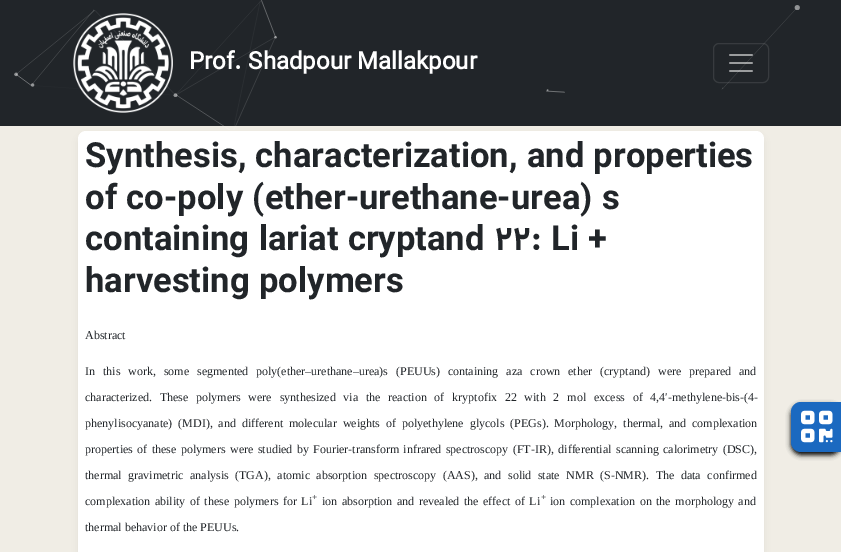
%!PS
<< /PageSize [841 552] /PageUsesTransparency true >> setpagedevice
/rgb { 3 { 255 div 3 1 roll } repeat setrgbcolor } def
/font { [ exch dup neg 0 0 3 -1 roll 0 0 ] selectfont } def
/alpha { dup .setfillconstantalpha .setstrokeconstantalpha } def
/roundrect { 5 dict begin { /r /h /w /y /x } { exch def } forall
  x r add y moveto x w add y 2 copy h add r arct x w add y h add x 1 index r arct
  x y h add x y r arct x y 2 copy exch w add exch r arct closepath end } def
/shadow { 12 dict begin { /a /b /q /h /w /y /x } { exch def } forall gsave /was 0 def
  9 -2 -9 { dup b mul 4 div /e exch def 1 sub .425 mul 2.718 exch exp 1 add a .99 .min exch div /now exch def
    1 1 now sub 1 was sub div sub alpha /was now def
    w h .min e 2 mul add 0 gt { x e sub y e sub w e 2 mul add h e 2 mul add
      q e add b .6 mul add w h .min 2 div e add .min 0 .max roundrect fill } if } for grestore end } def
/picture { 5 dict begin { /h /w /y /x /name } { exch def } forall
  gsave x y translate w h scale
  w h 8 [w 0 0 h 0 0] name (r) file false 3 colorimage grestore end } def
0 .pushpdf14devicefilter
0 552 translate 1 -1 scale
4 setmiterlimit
240 237 229 rgb
0 0 841 552 rectfill
0 0 0 rgb
78 135 686 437 8 4 0.05 shadow
33 37 41 rgb
0 0 841 126 rectfill
(img/1.rgb) 14 0 786 130 picture
(img/2.rgb) 73 13 100 100 picture
0.1 alpha
255 255 255 rgb
713.5 43.5 55 39 5.5 roundrect stroke
1 alpha
(img/3.rgb) 729 54 24 18 picture
78 131 686 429 8 roundrect fill
0 0 0 rgb
791 405 50 50 10 2.5 1 shadow
27 105 192 rgb
801 402 moveto 841 402 lineto 841 452 lineto 801 452 lineto 795.5 452 791 447.5 791 442 curveto 791 412 lineto 791 406.5 795.5 402 801 402 curveto closepath fill
(img/4.rgb) 801 410 32 33 picture
/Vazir-Bold 24 font
255 255 255 rgb
189 69 moveto (Prof. Shadpour Mallakpour) show
/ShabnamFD-Bold 34.6 font
33 37 41 rgb
[
  [(Synthesis, characterization, and properties) 85 167]
  [(of co-poly \(ether-urethane-urea\) s) 85 209]
  [(containing lariat cryptand 22: Li +) 85 250]
  [(harvesting polymers) 85 292]
] { aload pop moveto show } forall
/LiberationSerif-Regular 12 font
85 339 moveto (Abstract) show
85 375 moveto 4.9 0 32 (In this work, some segmented poly\(ether–urethane–urea\)s \(PEUUs\) containing aza crown ether \(cryptand\) were prepared and) widthshow
85 401 moveto 4.75 0 32 (characterized. These polymers were synthesized via the reaction of kryptofix 22 with 2 mol excess of 4,4′-methylene-bis-\(4-) widthshow
85 427 moveto 2.9 0 32 (phenylisocyanate\) \(MDI\), and different molecular weights of polyethylene glycols \(PEGs\). Morphology, thermal, and complexation) widthshow
85 453 moveto 1.4 0 32 (properties of these polymers were studied by Fourier-transform infrared spectroscopy \(FT-IR\), differential scanning calorimetry \(DSC\),) widthshow
85 479 moveto 3.5 0 32 (thermal gravimetric analysis \(TGA\), atomic absorption spectroscopy \(AAS\), and solid state NMR \(S-NMR\). The data confirmed) widthshow
85 505 moveto 1.5 0 32 (complexation ability of these polymers for Li) widthshow
/LiberationSerif-Regular 9 font
312 500 moveto (+) show
/LiberationSerif-Regular 12 font
322 505 moveto 1.5 0 32 (ion absorption and revealed the effect of Li) widthshow
/LiberationSerif-Regular 9 font
541 500 moveto (+) show
/LiberationSerif-Regular 12 font
550 505 moveto 1.5 0 32 (ion complexation on the morphology and) widthshow
85 531 moveto (thermal behavior of the PEUUs.) show
.poppdf14devicefilter showpage
